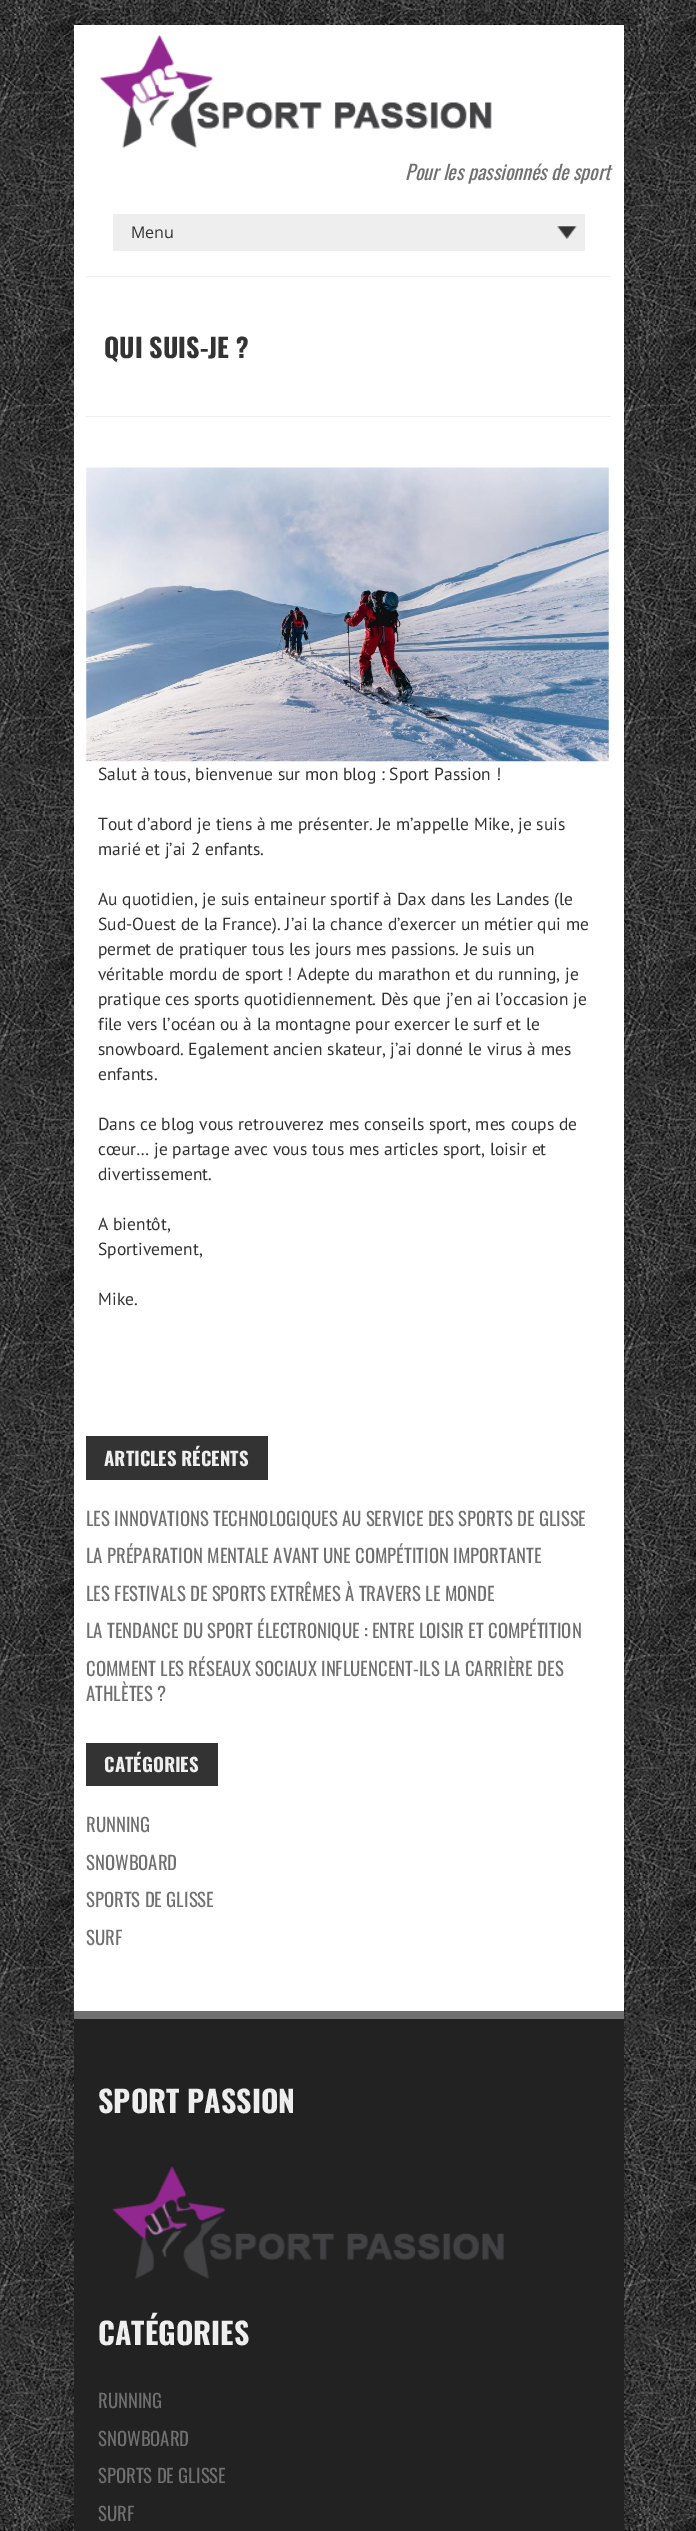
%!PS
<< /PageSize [696 2531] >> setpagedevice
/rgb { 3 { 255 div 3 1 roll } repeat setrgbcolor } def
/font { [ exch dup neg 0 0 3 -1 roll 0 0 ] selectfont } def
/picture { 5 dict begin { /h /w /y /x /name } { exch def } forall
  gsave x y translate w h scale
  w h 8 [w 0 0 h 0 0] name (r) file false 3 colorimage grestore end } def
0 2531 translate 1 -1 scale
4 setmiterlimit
255 255 255 rgb
0 0 696 2531 rectfill
(img/1.rgb) 0 0 696 2531 picture
74 25 550 1986 rectfill
(img/2.rgb) 100 35 392 113 picture
238 238 238 rgb
86 276 525 1 rectfill
113 214 472 37 rectfill
(img/3.rgb) 557 226 20 13 picture
86 416 525 1 rectfill
(img/4.rgb) 86 467 523 295 picture
[
  [86 1436 182 44 51 51 51]
  [86 1743 132 43 51 51 51]
  [74 2019 550 512 34 34 34]
  [74 2011 550 8 112 112 112]
] { aload pop rgb rectfill } forall
(img/5.rgb) 112 2166 392 113 picture
/Oswald-Italic 20 font
405 180 moveto (Pour les passionnés de sport) show
/OpenSans-Regular 16 font
51 51 51 rgb
131 238 moveto (Menu) show
/Oswald-Bold 26.25 font
104 358 moveto (QUI SUIS-JE ?) show
/PTSans-Regular 17.5 font
[
  [(Salut à tous, bienvenue sur mon blog : Sport Passion !) 98 780]
  [(Tout d’abord je tiens à me présenter. Je m’appelle Mike, je suis) 98 830]
  [(marié et j’ai 2 enfants.) 98 855]
  [(Au quotidien, je suis entaineur sportif à Dax dans les Landes \(le) 98 905]
  [(Sud-Ouest de la France\). J’ai la chance d’exercer un métier qui me) 98 930]
  [(permet de pratiquer tous les jours mes passions. Je suis un) 98 955]
  [(véritable mordu de sport ! Adepte du marathon et du running, je) 98 980]
  [(pratique ces sports quotidiennement. Dès que j’en ai l’occasion je) 98 1005]
  [(file vers l’océan ou à la montagne pour exercer le surf et le) 98 1030]
  [(snowboard. Egalement ancien skateur, j’ai donné le virus à mes) 98 1055]
  [(enfants.) 98 1080]
  [(Dans ce blog vous retrouverez mes conseils sport, mes coups de) 98 1130]
  [(cœur… je partage avec vous tous mes articles sport, loisir et) 98 1155]
  [(divertissement.) 98 1180]
  [(A bientôt,) 98 1230]
  [(Sportivement,) 98 1255]
  [(Mike.) 98 1305]
] { aload pop moveto show } forall
/Oswald-Bold 18.75 font
238 238 238 rgb
104 1466 moveto (ARTICLES RÉCENTS) show
/Oswald-Regular 18.75 font
112 112 112 rgb
[
  [(LES INNOVATIONS TECHNOLOGIQUES AU SERVICE DES SPORTS DE GLISSE) 86 1526]
  [(LA PRÉPARATION MENTALE AVANT UNE COMPÉTITION IMPORTANTE) 86 1563]
  [(LES FESTIVALS DE SPORTS EXTRÊMES À TRAVERS LE MONDE) 86 1601]
  [(LA TENDANCE DU SPORT ÉLECTRONIQUE : ENTRE LOISIR ET COMPÉTITION) 86 1638]
  [(COMMENT LES RÉSEAUX SOCIAUX INFLUENCENT-ILS LA CARRIÈRE DES) 86 1676]
  [(ATHLÈTES ?) 86 1701]
] { aload pop moveto show } forall
/Oswald-Bold 18.75 font
238 238 238 rgb
104 1772 moveto (CATÉGORIES) show
/Oswald-Regular 18.75 font
112 112 112 rgb
[
  [(RUNNING) 86 1832]
  [(SNOWBOARD) 86 1870]
  [(SPORTS DE GLISSE) 86 1907]
  [(SURF) 86 1945]
] { aload pop moveto show } forall
/Oswald-Bold 30 font
238 238 238 rgb
98 2113 moveto (SPORT PASSION) show
98 2345 moveto (CATÉGORIES) show
/Oswald-Regular 18.75 font
112 112 112 rgb
[
  [(RUNNING) 98 2408]
  [(SNOWBOARD) 98 2446]
  [(SPORTS DE GLISSE) 98 2483]
  [(SURF) 98 2521]
] { aload pop moveto show } forall
showpage
